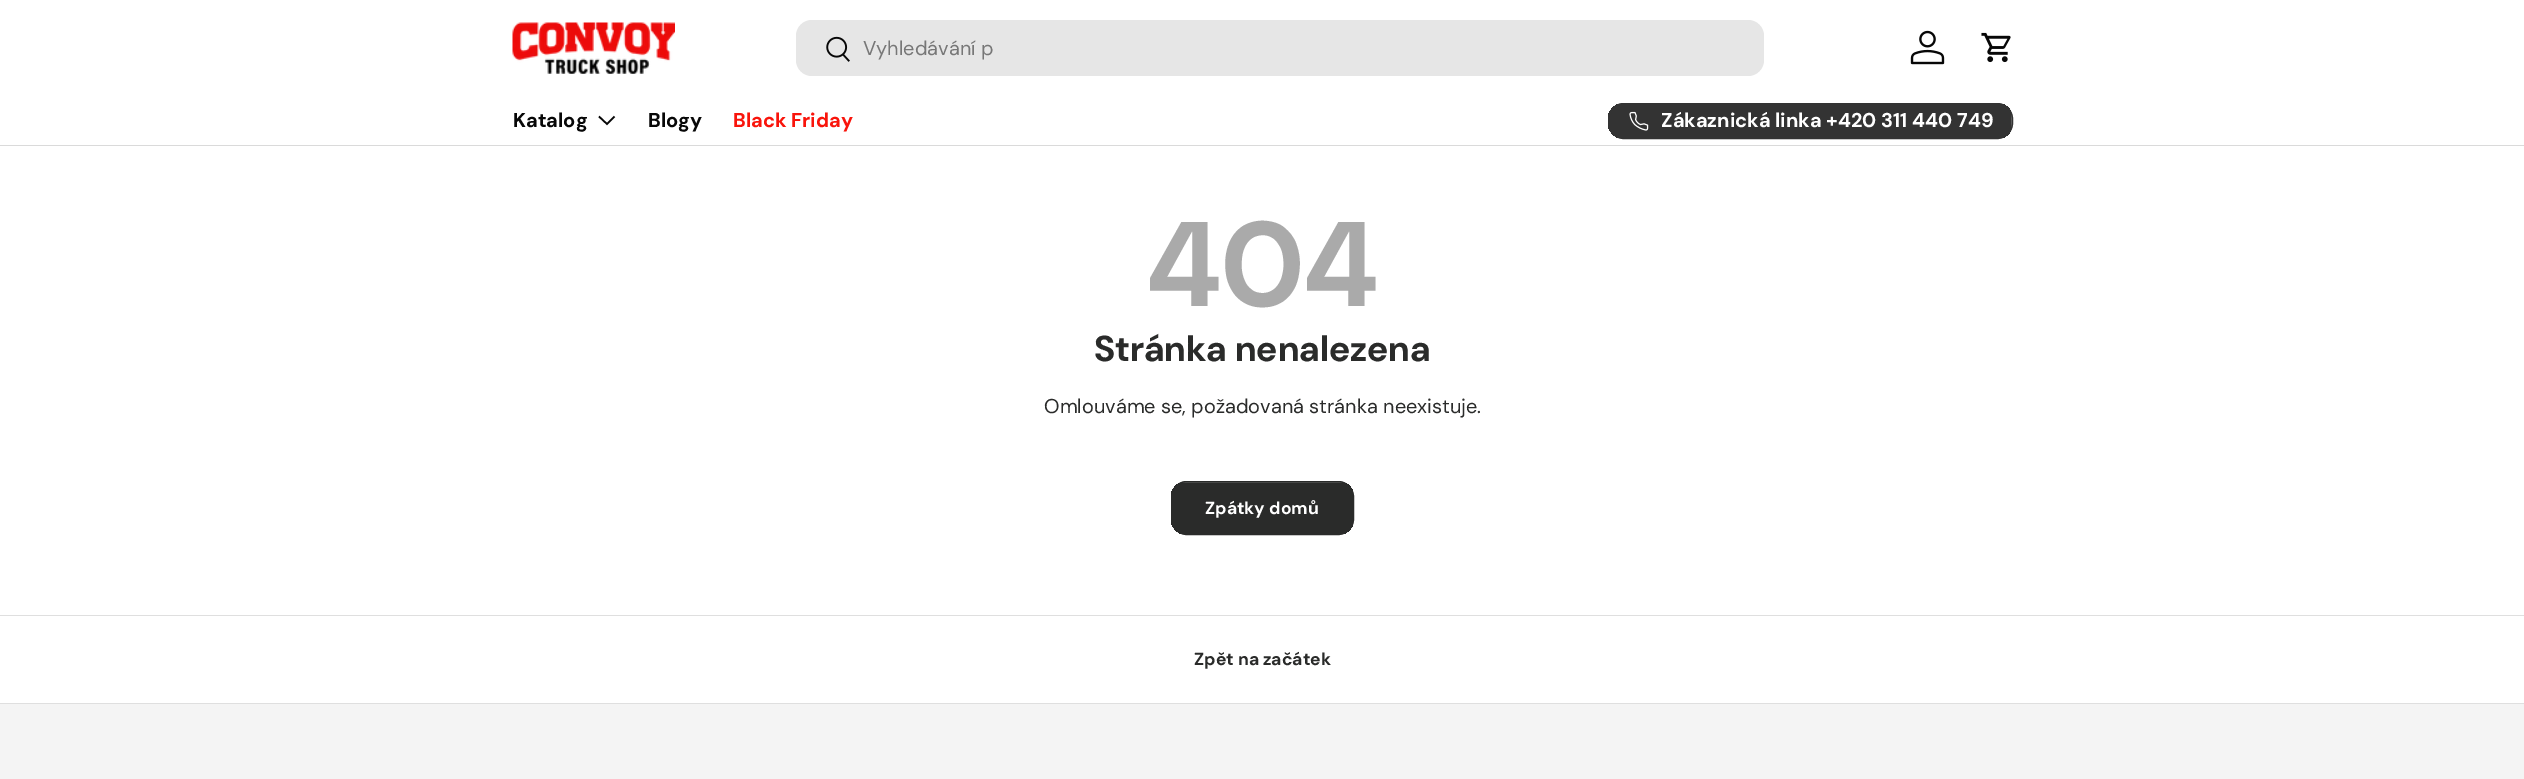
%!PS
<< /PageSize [2524 779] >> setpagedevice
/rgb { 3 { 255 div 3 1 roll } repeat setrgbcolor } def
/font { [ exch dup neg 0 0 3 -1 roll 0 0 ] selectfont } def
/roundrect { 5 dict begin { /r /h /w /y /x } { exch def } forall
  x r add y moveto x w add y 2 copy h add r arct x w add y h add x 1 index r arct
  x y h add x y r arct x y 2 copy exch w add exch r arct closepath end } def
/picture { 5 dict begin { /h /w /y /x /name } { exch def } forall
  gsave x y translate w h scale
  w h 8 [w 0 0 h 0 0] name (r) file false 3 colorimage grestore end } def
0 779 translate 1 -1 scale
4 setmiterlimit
255 255 255 rgb
0 0 2524 779 rectfill
218 218 218 rgb
0 145 2524 1 rectfill
(img/1.rgb) 512 22 163 52 picture
230 230 230 rgb
796 20 968 56 16 roundrect fill
(img/2.rgb) 826 36 24 26 picture
(img/3.rgb) 1910 30 35 35 picture
(img/4.rgb) 1981 32 30 31 picture
7 7 7 rgb
1.6 setlinewidth
614.5 116.5 moveto 607 124 lineto 599 116.5 lineto stroke
90 90 90 rgb
1608 103 405 36 16 roundrect fill
gsave
1608 103 405 36 16 roundrect clip newpath
gsave 1608 104 moveto 2011 104 lineto 2011 138 lineto 1608 138 lineto closepath clip newpath
<< /ShadingType 2 /ColorSpace /DeviceRGB /Coords [835 -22 1980 263] /Extend [true true] /Function << /FunctionType 3 /Domain [0 1] /Functions [<< /FunctionType 2 /Domain [0 1] /C0 [0.353 0.353 0.353] /C1 [0.353 0.353 0.353] /N 1 >> << /FunctionType 2 /Domain [0 1] /C0 [0.2 0.2 0.2] /C1 [0.2 0.2 0.2] /N 1 >>] /Bounds [0.6] /Encode [0 1 0 1] >> >> shfill grestore
grestore
51 51 51 rgb
1 setlinewidth
1608.5 103.5 404 35 15.5 roundrect stroke
(img/5.rgb) 1629 111 20 20 picture
82 83 82 rgb
1171 481 183 54 16 roundrect fill
gsave
1171 481 183 54 16 roundrect clip newpath
gsave 1171 483 moveto 1353 483 lineto 1353 534 lineto 1171 534 lineto closepath clip newpath
<< /ShadingType 2 /ColorSpace /DeviceRGB /Coords [822 443 1343 573] /Extend [true true] /Function << /FunctionType 3 /Domain [0 1] /Functions [<< /FunctionType 2 /Domain [0 1] /C0 [0.322 0.325 0.322] /C1 [0.322 0.325 0.322] /N 1 >> << /FunctionType 2 /Domain [0 1] /C0 [0.165 0.169 0.165] /C1 [0.165 0.169 0.165] /N 1 >>] /Bounds [0.6] /Encode [0 1 0 1] >> >> shfill grestore
grestore
42 43 42 rgb
1171.5 481.5 182 53 15.5 roundrect stroke
[
  [0 615 2524 1 223 223 223]
  [0 703 2524 1 223 223 223]
  [0 704 2524 75 244 244 244]
] { aload pop rgb rectfill } forall
/DMSans-Regular 20 font
119 119 119 rgb
863 55 moveto (Vyhledávání p) show
/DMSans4-Bold 20 font
7 7 7 rgb
513 127 moveto (Katalog) show
648 127 moveto (Blogy) show
249 20 11 rgb
733 127 moveto (Black Friday) show
255 255 255 rgb
1661 127 moveto (Zákaznická linka +420 311 440 749) show
/DMSans-Bold 120 font
170 170 170 rgb
1147 306 moveto (404) show
/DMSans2-Bold 36 font
42 43 42 rgb
1094 361 moveto (Stránka nenalezena) show
/DMSans-Regular 20 font
1044 413 moveto (Omlouváme se, požadovaná stránka neexistuje.) show
/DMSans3-Bold 17.5 font
255 255 255 rgb
1205 514 moveto (Zpátky domů) show
42 43 42 rgb
1194 665 moveto (Zpět na začátek) show
showpage
